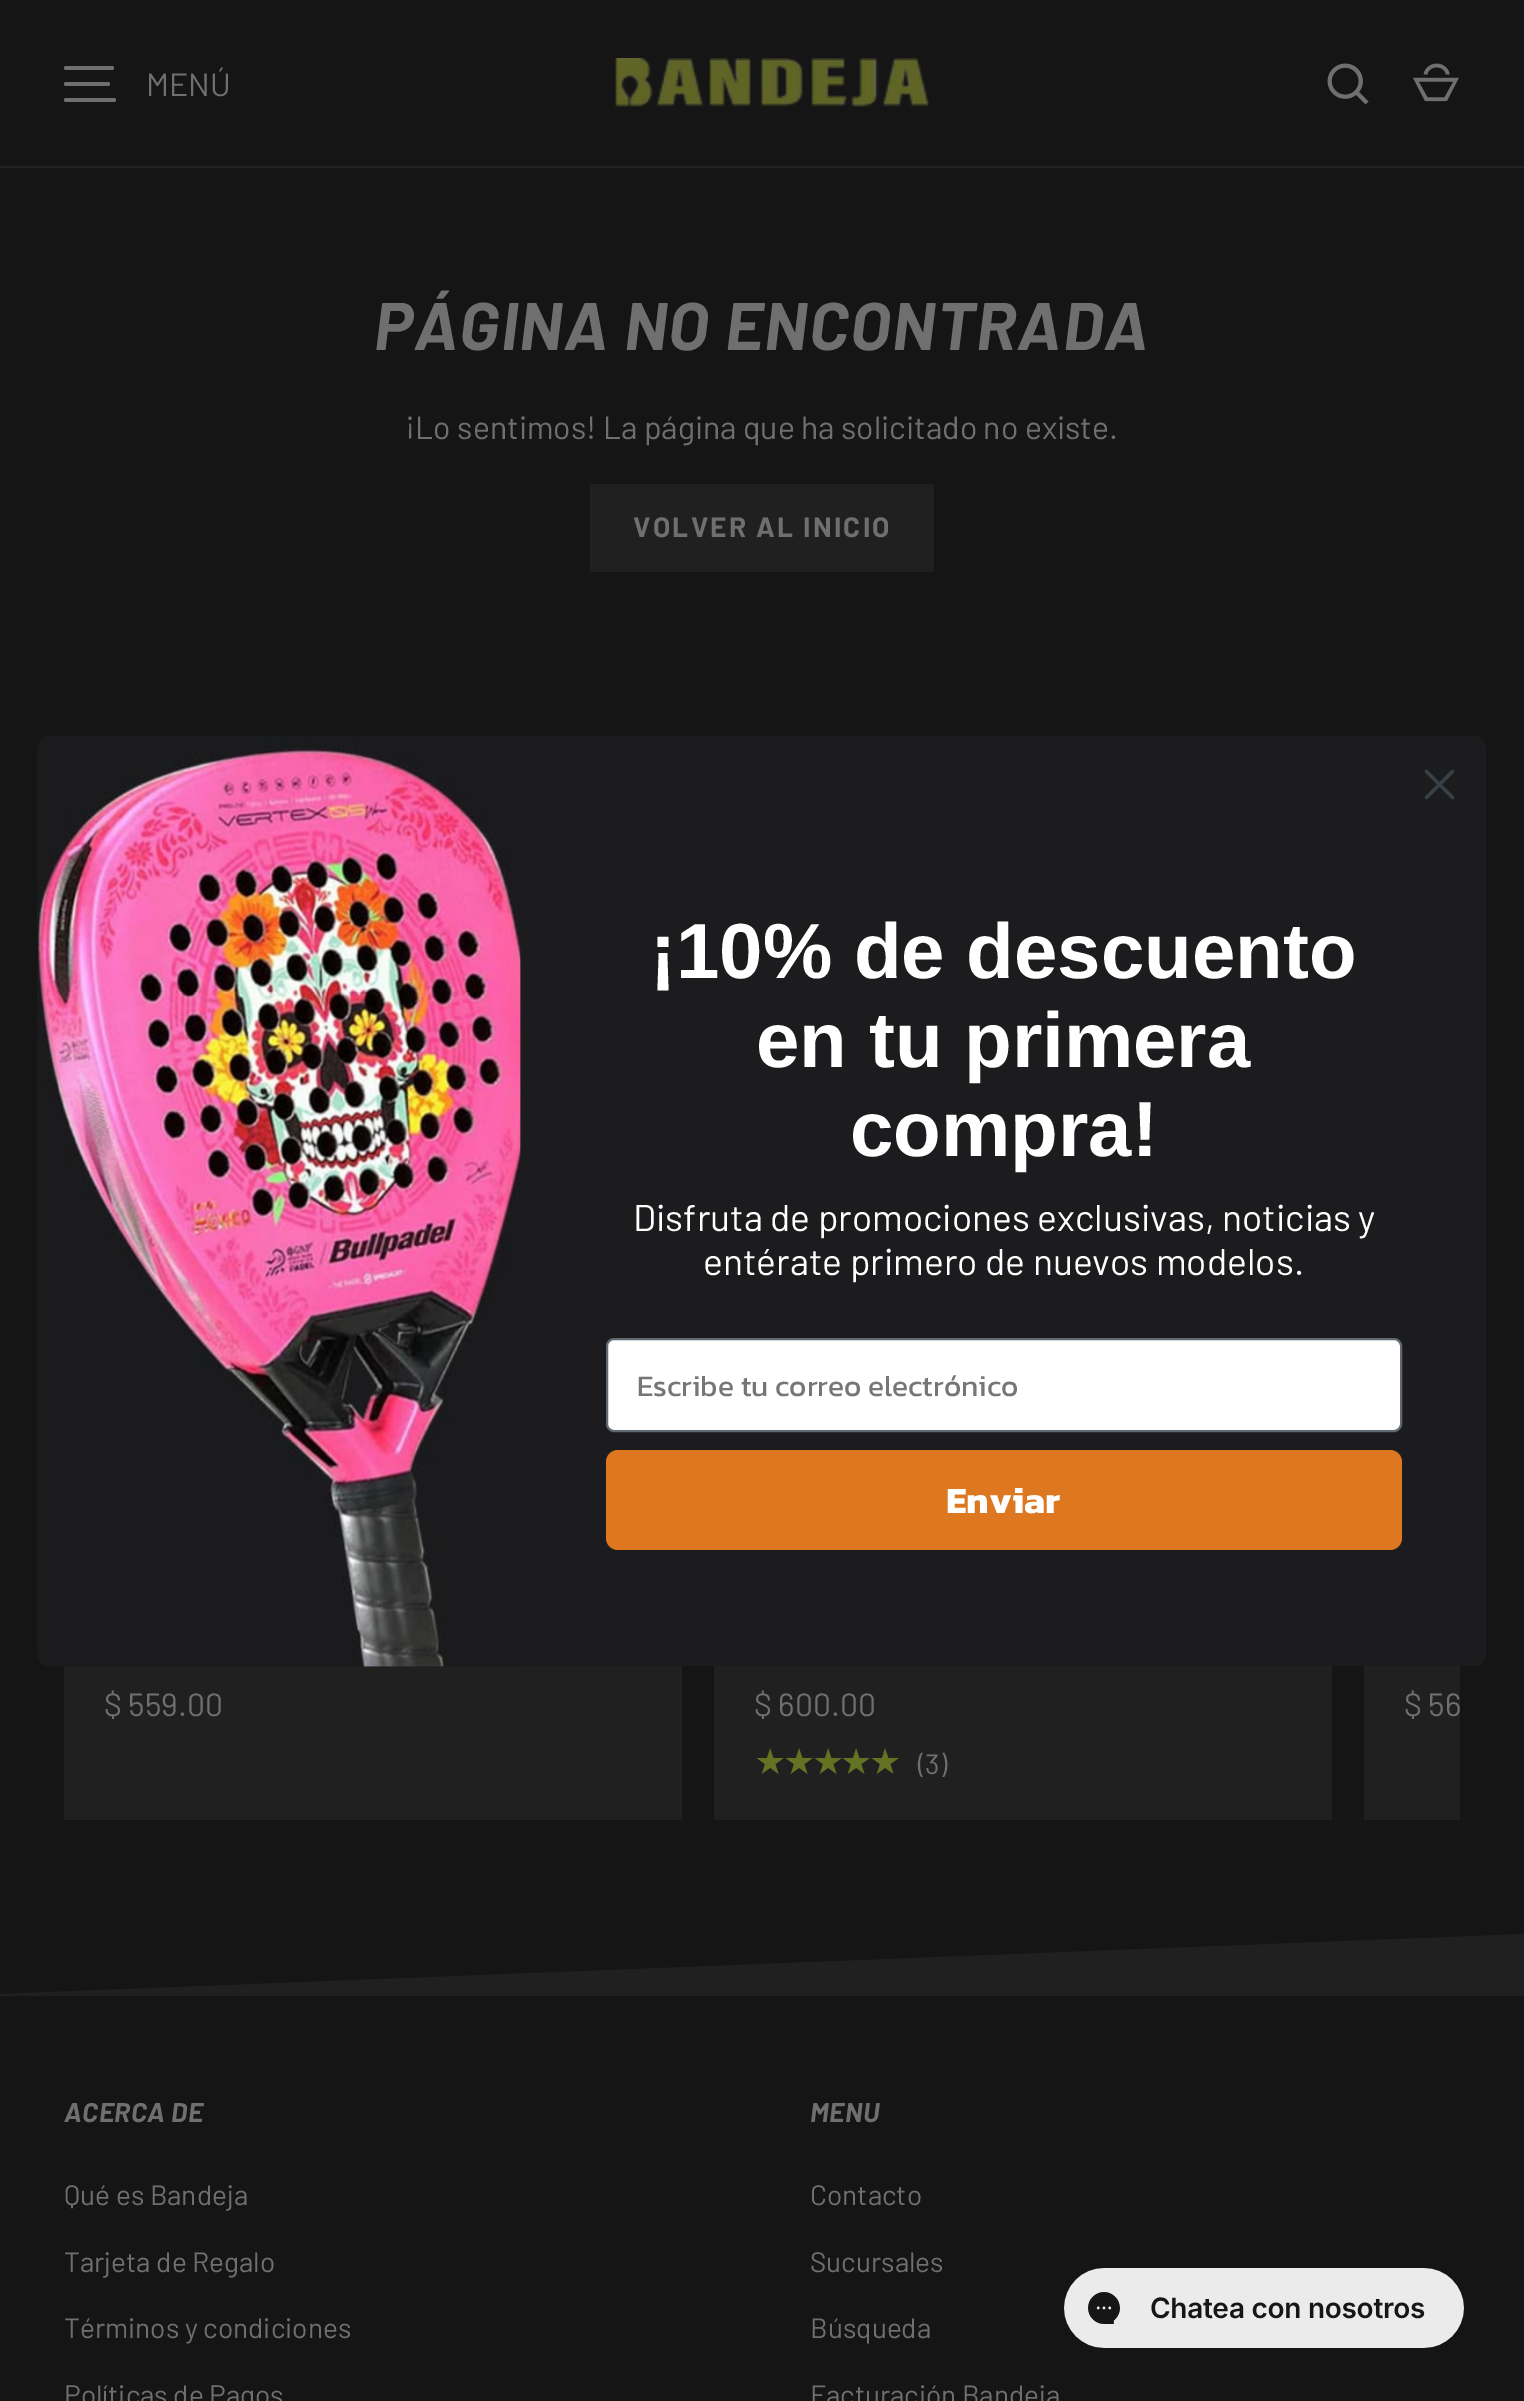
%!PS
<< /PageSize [1524 2401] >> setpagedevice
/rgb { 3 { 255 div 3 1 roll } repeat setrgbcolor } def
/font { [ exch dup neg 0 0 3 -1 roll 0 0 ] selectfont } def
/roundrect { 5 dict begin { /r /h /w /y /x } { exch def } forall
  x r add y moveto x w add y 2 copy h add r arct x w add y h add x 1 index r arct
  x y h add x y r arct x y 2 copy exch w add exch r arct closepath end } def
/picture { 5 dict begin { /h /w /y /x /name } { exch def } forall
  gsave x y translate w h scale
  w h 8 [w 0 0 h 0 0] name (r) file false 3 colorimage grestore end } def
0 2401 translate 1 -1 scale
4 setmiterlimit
21 21 21 rgb
0 0 1524 2401 rectfill
111 111 111 rgb
64 66 50 4 2 roundrect fill
64 82 46 4 2 roundrect fill
64 98 52 4 2 roundrect fill
(img/1.rgb) 615 58 314 49 picture
(img/2.rgb) 1327 63 42 42 picture
(img/3.rgb) 1413 63 46 39 picture
[
  [0 166 1524 2 34 34 34]
  [590 484 344 88 32 32 32]
  [64 1666 618 154 32 32 32]
  [714 1666 618 154 32 32 32]
  [1364 1666 96 154 32 32 32]
] { aload pop rgb rectfill } forall
28 28 30 rgb
38 736 1448 930 12 roundrect fill
55 63 71 rgb
3.3 setlinewidth
1 setlinecap
1 setlinejoin
1426.5 771.5 moveto 1452.5 797.5 lineto 1426.5 797.5 moveto 1452.5 771.5 lineto closepath stroke
(img/4.rgb) 37 737 484 930 picture
255 255 255 rgb
607 1339 794 92 7 roundrect gsave fill grestore
96 106 114 rgb
2 setlinewidth
0 setlinecap
0 setlinejoin
stroke
221 120 33 rgb
606 1450 796 100 12 roundrect fill
gsave
0 1934 1524 62 rectclip
32 32 32 rgb
1524 1934 moveto 0 1994 lineto 0 1997 lineto 1524 1997 lineto closepath fill
grestore
(img/5.rgb) 1064 2268 400 80 picture
/Barlow-Regular 32 font
111 111 111 rgb
146 96 moveto (MENÚ) show
/Barlow-BoldItalic 67.25 font
374 350 moveto 1.35 0 (PÁGINA NO ENCONTRADA) ashow
/Barlow-Regular 32 font
405 439 moveto (¡Lo sentimos! La página que ha solicitado no existe.) show
/Barlow-Bold 28 font
633 537 moveto 2.25 0 (VOLVER AL INICIO) ashow
/Barlow-Regular 32 font
104 1716 moveto ($ 559.00) show
754 1716 moveto ($ 600.00) show
/DejaVuSans-Regular 36 font
100 114 36 rgb
754 1774 moveto -3.5 0 (★★★★★) ashow
/Barlow-Regular 28 font
111 111 111 rgb
918 1774 moveto (\(3\)) show
/Barlow-Regular 32 font
1404 1716 moveto ($ 56) show
/LiberationSans-Bold 78 font
255 255 255 rgb
[
  [(¡10% de descuento) 650 978]
  [(en tu primera) 756 1067]
  [(compra!) 850 1156]
] { aload pop moveto show } forall
/Barlow-Regular 37.2 font
633 1231 moveto (Disfruta de promociones exclusivas, noticias y) show
703 1275 moveto (entérate primero de nuevos modelos.) show
/Kanit-Regular 29.75 font
118 118 118 rgb
637 1396 moveto (Escribe tu correo electrónico) show
/Kanit-Bold 37.2 font
255 255 255 rgb
946 1513 moveto (Enviar) show
/Barlow-BoldItalic 27 font
111 111 111 rgb
64 2122 moveto 0.5 0 (ACERCA DE) ashow
/Barlow-Regular 28 font
[
  [(Qué es Bandeja) 64 2205]
  [(Tarjeta de Regalo) 64 2272]
  [(Términos y condiciones) 64 2338]
  [(Políticas de Pagos) 64 2405]
] { aload pop moveto show } forall
/Barlow-BoldItalic 27 font
810 2122 moveto 0.5 0 (MENU) ashow
/Barlow-Regular 28 font
[
  [(Contacto) 810 2205]
  [(Sucursales) 810 2272]
  [(Búsqueda) 810 2338]
  [(Facturación Bandeja) 810 2405]
] { aload pop moveto show } forall
showpage
